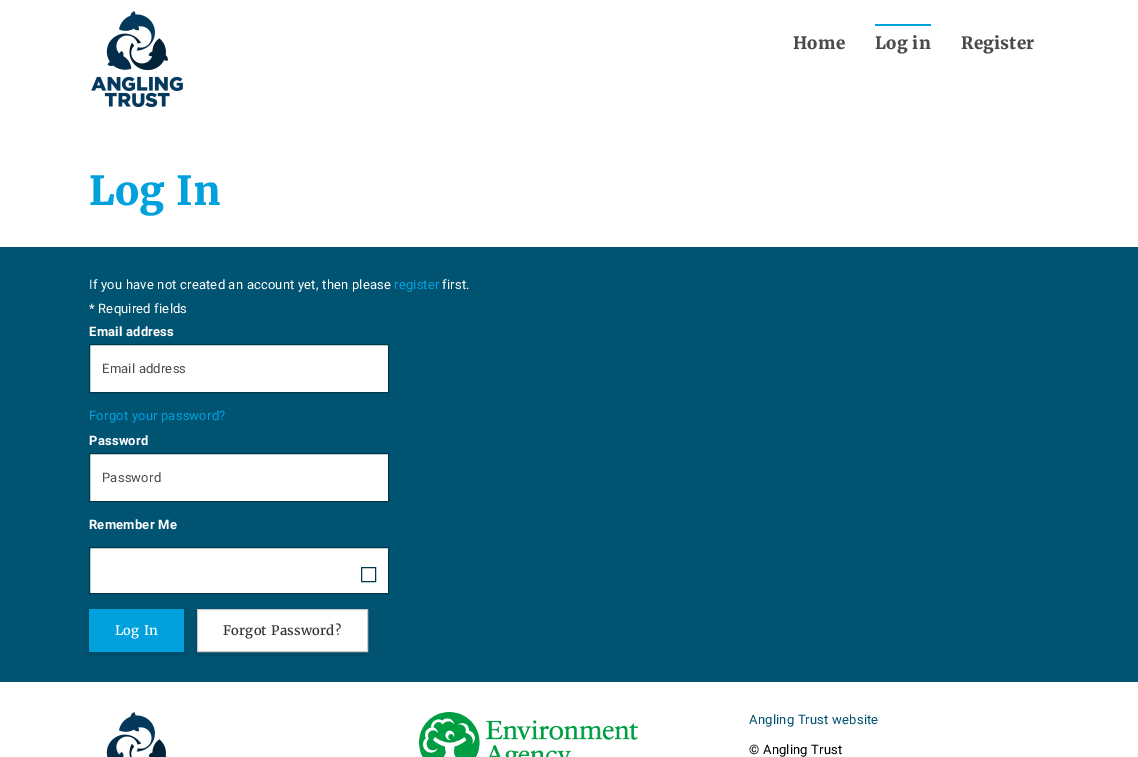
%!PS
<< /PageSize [1138 757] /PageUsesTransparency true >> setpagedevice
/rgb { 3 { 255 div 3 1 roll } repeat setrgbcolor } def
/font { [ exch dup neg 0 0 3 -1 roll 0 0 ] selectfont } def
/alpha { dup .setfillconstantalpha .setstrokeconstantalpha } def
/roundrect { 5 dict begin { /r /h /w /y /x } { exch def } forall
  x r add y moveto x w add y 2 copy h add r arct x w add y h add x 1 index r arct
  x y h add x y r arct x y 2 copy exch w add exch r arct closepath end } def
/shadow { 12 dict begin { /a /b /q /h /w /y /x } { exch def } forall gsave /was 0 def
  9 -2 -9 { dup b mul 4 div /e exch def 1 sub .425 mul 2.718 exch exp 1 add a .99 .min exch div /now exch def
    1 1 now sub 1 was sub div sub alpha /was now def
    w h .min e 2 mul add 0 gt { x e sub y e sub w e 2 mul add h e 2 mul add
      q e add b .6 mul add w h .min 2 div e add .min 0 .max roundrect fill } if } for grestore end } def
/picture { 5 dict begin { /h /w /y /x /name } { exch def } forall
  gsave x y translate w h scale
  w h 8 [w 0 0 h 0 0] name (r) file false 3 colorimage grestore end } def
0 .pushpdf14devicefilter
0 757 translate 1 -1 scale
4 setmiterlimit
255 255 255 rgb
0 0 1138 757 rectfill
(img/1.rgb) 91 11 92 96 picture
0 161 220 rgb
875 24 56 2 rectfill
0 83 113 rgb
0 247 1138 435 rectfill
255 255 255 rgb
89.5 344.5 moveto 388.5 344.5 lineto 388.5 392.5 lineto 89.5 392.5 lineto closepath gsave fill grestore
0 56 73 rgb
stroke
255 255 255 rgb
89.5 453.5 moveto 388.5 453.5 lineto 388.5 501.5 lineto 89.5 501.5 lineto closepath gsave fill grestore
0 56 73 rgb
stroke
255 255 255 rgb
89.5 547.5 moveto 388.5 547.5 lineto 388.5 593.5 lineto 89.5 593.5 lineto closepath gsave fill grestore
0 56 73 rgb
stroke
361.5 567.5 14 14 rectstroke
0 0 0 rgb
89 611 95 43 0 2.5 0.15 shadow
0 161 220 rgb
89 609 95 43 rectfill
0 0 0 rgb
197 611 171 43 0 2.5 0.15 shadow
255 255 255 rgb
197.5 609.5 moveto 367.5 609.5 lineto 367.5 651.5 lineto 197.5 651.5 lineto closepath gsave fill grestore
204 204 204 rgb
stroke
(img/2.rgb) 106 712 61 45 picture
(img/3.rgb) 419 712 219 45 picture
/Merriweather-Bold 17 font
74 74 74 rgb
793 49 moveto 0.2 0 (Home) ashow
875 49 moveto 0.2 0 (Log in) ashow
961 49 moveto 0.2 0 (Register) ashow
/Merriweather-Bold 40 font
0 161 220 rgb
89 205 moveto 0.2 0 (Log In) ashow
/Roboto-Regular 13 font
255 255 255 rgb
89 289 moveto 0.2 0 (If you have not created an account yet, then please) ashow
0 161 220 rgb
394 289 moveto 0.2 0 (register) ashow
255 255 255 rgb
442 289 moveto 0.2 0 (first.) ashow
89 313 moveto 0.2 0 (* Required fields) ashow
/Roboto-Bold 13 font
89 336 moveto 0.2 0 (Email address) ashow
/Roboto-Regular 13 font
74 74 74 rgb
102 373 moveto 0.2 0 (Email address) ashow
0 161 220 rgb
89 420 moveto 0.2 0 (Forgot your password?) ashow
/Roboto-Bold 13 font
255 255 255 rgb
89 445 moveto 0.2 0 (Password) ashow
/Roboto-Regular 13 font
74 74 74 rgb
102 482 moveto 0.2 0 (Password) ashow
/Roboto-Bold 13 font
255 255 255 rgb
89 529 moveto 0.2 0 (Remember Me) ashow
/Merriweather-Regular 13 font
115 635 moveto 0.2 0 (Log In) ashow
51 51 51 rgb
223 635 moveto 0.2 0 (Forgot Password?) ashow
/Roboto-Regular 13 font
0 83 113 rgb
749 724 moveto 0.2 0 (Angling Trust website) ashow
0 0 0 rgb
749 754 moveto 0.2 0 (© Angling Trust) ashow
.poppdf14devicefilter showpage
